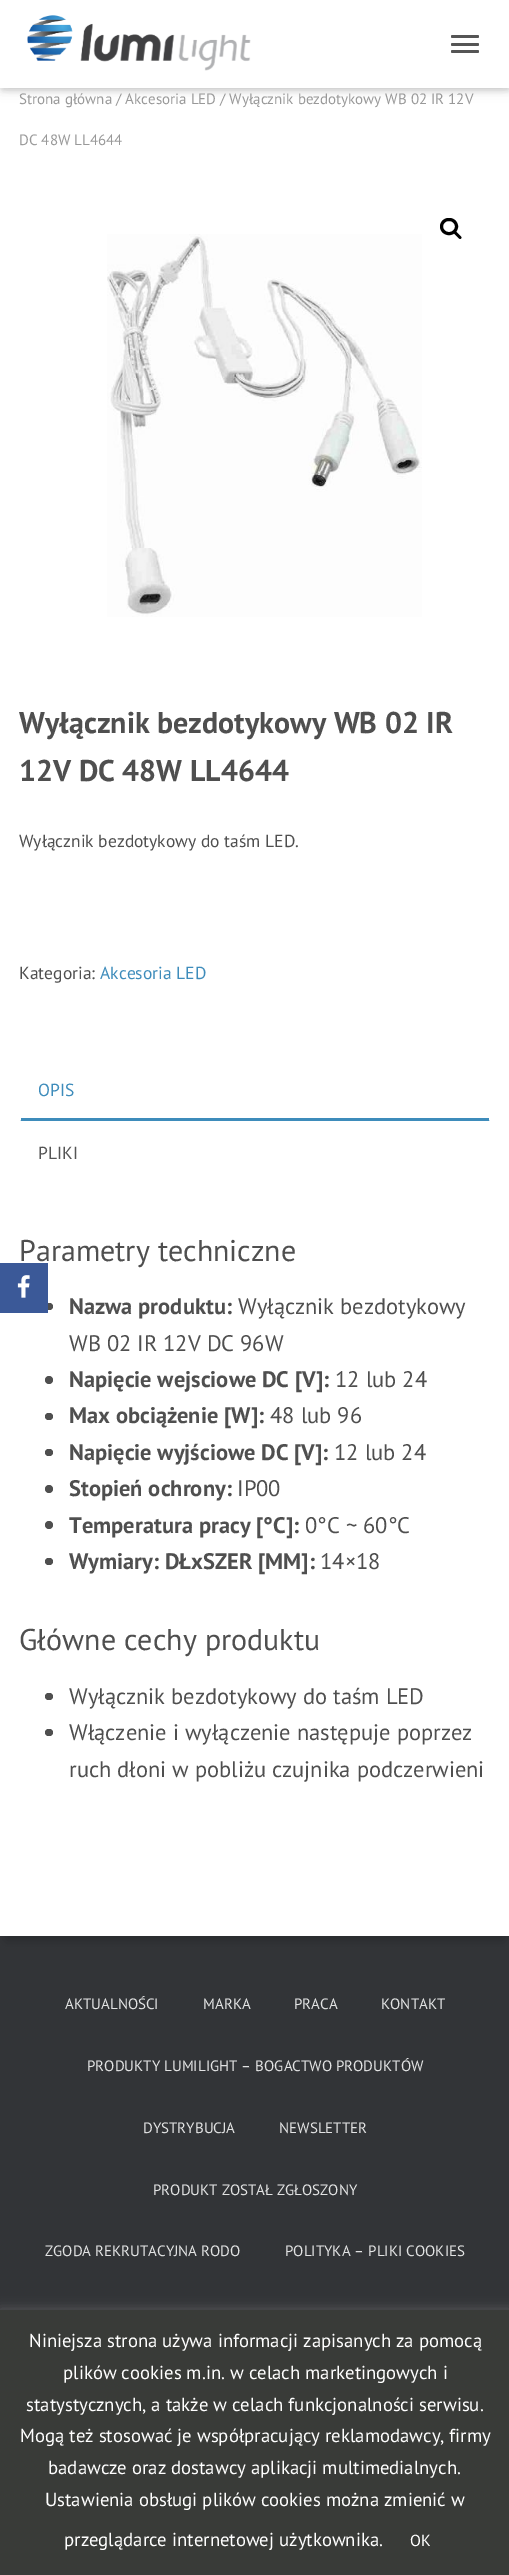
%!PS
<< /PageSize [509 2575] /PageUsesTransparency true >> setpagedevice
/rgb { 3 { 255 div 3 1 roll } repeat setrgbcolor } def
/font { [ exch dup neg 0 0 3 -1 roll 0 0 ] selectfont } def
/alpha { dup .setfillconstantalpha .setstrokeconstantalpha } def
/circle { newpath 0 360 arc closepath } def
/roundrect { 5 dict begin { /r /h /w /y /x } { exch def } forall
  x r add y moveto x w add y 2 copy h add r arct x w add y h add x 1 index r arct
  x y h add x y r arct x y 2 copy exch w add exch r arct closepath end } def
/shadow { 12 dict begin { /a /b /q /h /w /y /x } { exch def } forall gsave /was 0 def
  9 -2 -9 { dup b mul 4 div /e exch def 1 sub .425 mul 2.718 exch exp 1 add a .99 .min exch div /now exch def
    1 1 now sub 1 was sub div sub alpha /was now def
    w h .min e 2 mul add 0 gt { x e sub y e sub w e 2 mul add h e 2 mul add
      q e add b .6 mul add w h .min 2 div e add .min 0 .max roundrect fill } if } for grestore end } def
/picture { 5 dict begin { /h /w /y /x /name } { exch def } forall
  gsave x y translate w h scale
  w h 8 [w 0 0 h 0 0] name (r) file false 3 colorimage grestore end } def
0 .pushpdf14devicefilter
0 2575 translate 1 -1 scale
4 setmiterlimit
50 52 55 rgb
0 0 509 2575 rectfill
0 0 0 rgb
6 -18 498 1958 0 6 0.2 shadow
255 255 255 rgb
0 88 509 1848 rectfill
0 0 0 rgb
3 8 505 82 0 3 0.1 shadow
0 1 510 88 0 6 0.12 shadow
8 9 495 72 0 6 0.42 shadow
255 255 255 rgb
0 0 509 88 rectfill
(img/1.rgb) 27 15 224 56 picture
85 85 85 rgb
451 35 28 3 1.5 roundrect fill
451 43 28 3 1.5 roundrect fill
451 50 28 3 1.5 roundrect fill
0 0 0 rgb
3 setlinewidth
441.5 219.5 15 14 7 roundrect stroke
454 231.5 moveto 455.5 230 457.5 233.5 458.5 234 curveto 459 235 462.5 237 461 238.5 curveto 459.5 240 457.5 236.5 456.5 236 curveto 456 235 452.5 233 454 231.5 curveto closepath fill
(img/2.rgb) 107 234 315 383 picture
62 140 187 rgb
19 1118 472 3 rectfill
255 255 255 rgb
15 1121 moveto 15 1124 lineto 19 1124 21 1122 21 1118 curveto 18.5 1118 lineto 18 1119.5 16.5 1120.5 15 1121 curveto closepath fill
489 1118 moveto 489 1122 491 1124 495 1124 curveto 495 1121 lineto 493.5 1120.5 492 1119.5 491.5 1118 curveto closepath fill
79 79 79 rgb
45 1303 8 7 3.5 roundrect fill
49 1380 4 circle fill
45 1413 8 7 3.5 roundrect fill
45 1449 8 7 3.5 roundrect fill
49 1489 4 circle fill
49 1525 4 circle fill
45 1558 8 7 3.5 roundrect fill
45 1693 8 7 3.5 roundrect fill
45 1729 8 7 3.5 roundrect fill
172 171 171 rgb
0 2309 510 265 0 6 0.3 shadow
57 59 56 rgb
0 2310 509 265 rectfill
/PTSans-Regular 15 font
153 153 153 rgb
19 104 moveto (Strona główna / Akcesoria LED / Wyłącznik bezdotykowy WB 02 IR 12V) show
19 145 moveto (DC 48W LL4644) show
/PTSans-Bold 30 font
79 79 79 rgb
19 733 moveto (Wyłącznik bezdotykowy WB 02 IR) show
19 781 moveto (12V DC 48W LL4644) show
/PTSans-Regular 17.5 font
19 847 moveto (Wyłącznik bezdotykowy do taśm LED.) show
19 979 moveto (Kategoria:) show
62 140 187 rgb
100 979 moveto (Akcesoria LED) show
38 1096 moveto (OPIS) show
85 85 85 rgb
38 1159 moveto (PLIKI) show
/PTSans-Regular 30 font
79 79 79 rgb
19 1261 moveto (Parametry techniczne) show
/PTSans-Bold 22.5 font
69 1314 moveto (Nazwa produktu:) show
/PTSans-Regular 22.5 font
238 1314 moveto (Wyłącznik bezdotykowy) show
69 1351 moveto (WB 02 IR 12V DC 96W) show
/PTSans-Bold 22.5 font
69 1387 moveto (Napięcie wejsciowe DC [V]:) show
/PTSans-Regular 22.5 font
335 1387 moveto (12 lub 24) show
/PTSans-Bold 22.5 font
69 1423 moveto (Max obciążenie [W]:) show
/PTSans-Regular 22.5 font
270 1423 moveto (48 lub 96) show
/PTSans-Bold 22.5 font
69 1460 moveto (Napięcie wyjściowe DC [V]:) show
/PTSans-Regular 22.5 font
334 1460 moveto (12 lub 24) show
/PTSans-Bold 22.5 font
69 1496 moveto (Stopień ochrony:) show
/PTSans-Regular 22.5 font
237 1496 moveto (IP00) show
/PTSans-Bold 22.5 font
69 1533 moveto (Temperatura pracy [°C]:) show
/PTSans-Regular 22.5 font
305 1533 moveto (0°C ~ 60°C) show
/PTSans-Bold 22.5 font
69 1569 moveto (Wymiary: DŁxSZER [MM]:) show
/PTSans-Regular 22.5 font
320 1569 moveto (14×18) show
/PTSans-Regular 30 font
19 1650 moveto (Główne cechy produktu) show
/PTSans-Regular 22.5 font
[
  [(Wyłącznik bezdotykowy do taśm LED) 69 1704]
  [(Włączenie i wyłączenie następuje poprzez) 69 1740]
  [(ruch dłoni w pobliżu czujnika podczerwieni) 69 1777]
] { aload pop moveto show } forall
/PTSans-Regular 15 font
226 227 227 rgb
[
  [(AKTUALNOŚCI) 65 2009]
  [(MARKA) 203 2009]
  [(PRACA) 294 2009]
  [(KONTAKT) 381 2009]
  [(PRODUKTY LUMILIGHT – BOGACTWO PRODUKTÓW) 87 2071]
  [(DYSTRYBUCJA) 143 2133]
  [(NEWSLETTER) 279 2133]
  [(PRODUKT ZOSTAŁ ZGŁOSZONY) 153 2195]
  [(ZGODA REKRUTACYJNA RODO) 45 2256]
  [(POLITYKA – PLIKI COOKIES) 285 2256]
] { aload pop moveto show } forall
59 89 152 rgb
0 1263 48 50 rectfill
(img/3.rgb) 17 1275 13 23 picture
/PTSans-Regular 18.75 font
255 255 255 rgb
[
  [(Niniejsza strona używa informacji zapisanych za pomocą) 29 2347]
  [(plików cookies m.in. w celach marketingowych i) 63 2379]
  [(statystycznych, a także w celach funkcjonalności serwisu.) 26 2411]
  [(Mogą też stosować je współpracujący reklamodawcy, firmy) 20 2442]
  [(badawcze oraz dostawcy aplikacji multimedialnych.) 48 2474]
  [(Ustawienia obsługi plików cookies można zmienić w) 45 2506]
  [(przeglądarce internetowej użytkownika.) 64 2546]
] { aload pop moveto show } forall
/PTSans-Regular 16 font
410 2546 moveto (OK) show
.poppdf14devicefilter showpage
